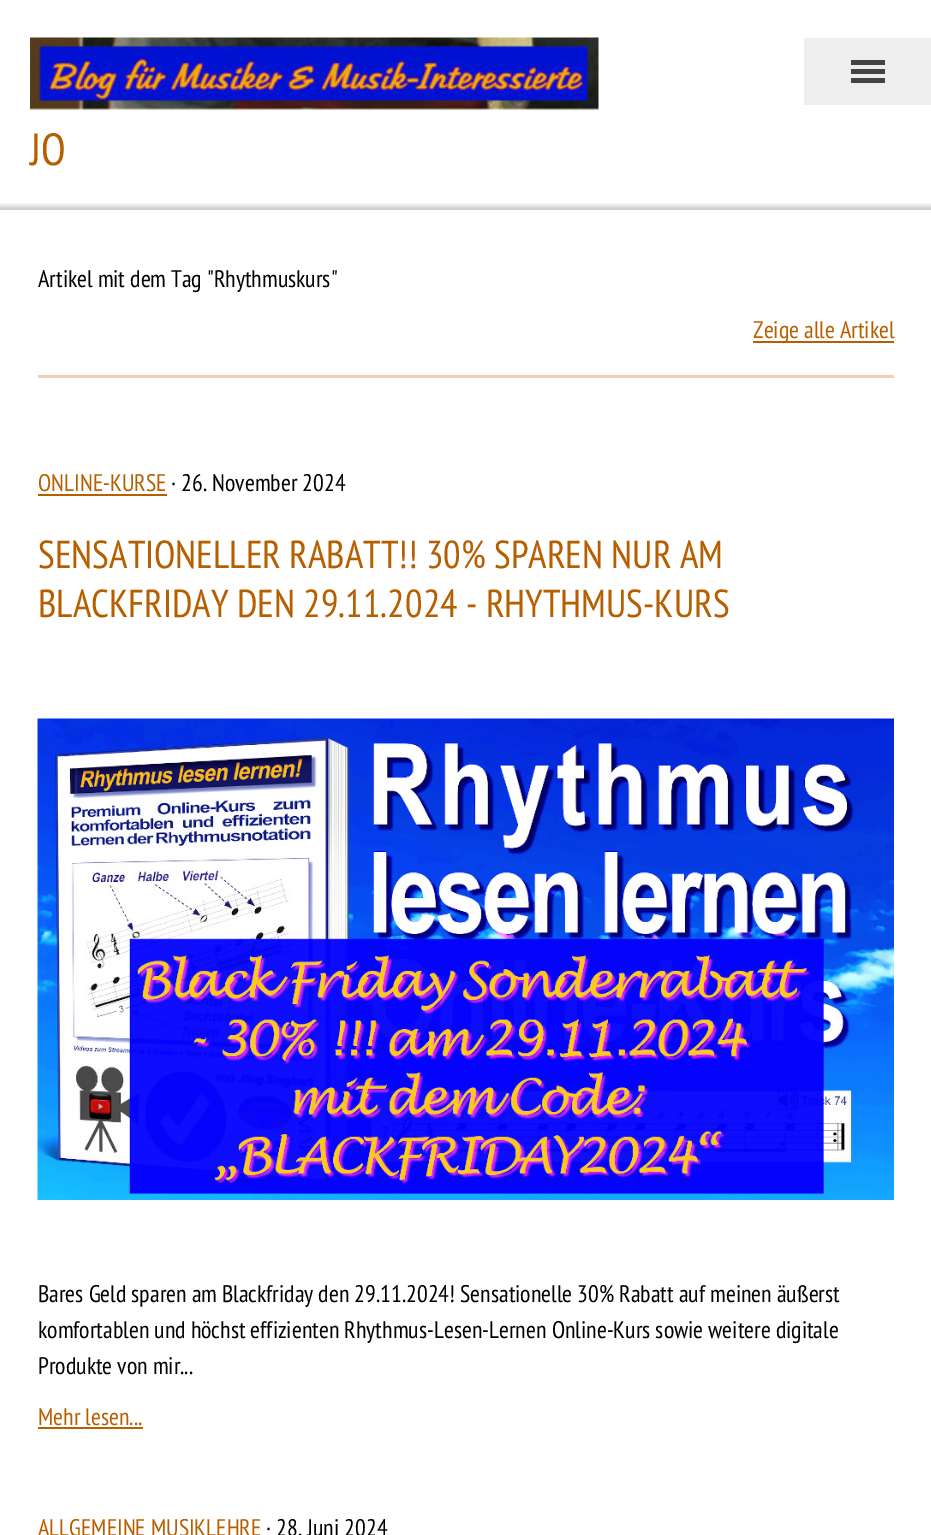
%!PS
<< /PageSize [931 1535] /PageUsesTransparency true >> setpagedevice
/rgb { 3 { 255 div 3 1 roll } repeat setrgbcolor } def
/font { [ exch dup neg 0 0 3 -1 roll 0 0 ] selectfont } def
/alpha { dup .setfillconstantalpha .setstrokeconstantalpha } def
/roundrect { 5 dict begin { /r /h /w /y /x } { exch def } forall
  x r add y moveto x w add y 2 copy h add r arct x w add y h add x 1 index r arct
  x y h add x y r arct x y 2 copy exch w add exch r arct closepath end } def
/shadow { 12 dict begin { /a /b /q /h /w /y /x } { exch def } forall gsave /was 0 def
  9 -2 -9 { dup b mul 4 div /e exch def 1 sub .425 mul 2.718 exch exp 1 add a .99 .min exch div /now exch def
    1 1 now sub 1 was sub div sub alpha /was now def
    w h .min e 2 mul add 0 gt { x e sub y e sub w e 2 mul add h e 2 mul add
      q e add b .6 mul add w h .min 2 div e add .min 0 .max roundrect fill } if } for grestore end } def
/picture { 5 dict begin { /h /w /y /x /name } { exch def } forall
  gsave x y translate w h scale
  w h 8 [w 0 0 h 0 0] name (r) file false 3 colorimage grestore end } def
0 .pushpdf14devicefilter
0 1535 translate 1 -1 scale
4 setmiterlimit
255 255 255 rgb
0 0 931 1535 rectfill
[
  [804 38 127 67 238 238 238]
  [851 69 34 5 68 68 68]
  [851 60 34 5 68 68 68]
  [851 78 34 5 68 68 68]
] { aload pop rgb rectfill } forall
(img/1.rgb) 30 37 569 73 picture
gsave
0 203 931 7 rectclip
0 0 0 rgb
-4 206 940 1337 0 2.5 0.2 shadow
grestore
[
  [753 341 141 2 182 95 0]
  [38 375 856 3 238 207 174]
  [38 494 129 2 182 95 0]
] { aload pop rgb rectfill } forall
(img/2.rgb) 37 718 857 482 picture
38 1427 105 2 rectfill
/PTSansNarrow-Regular 45 font
30 165 moveto (JO) show
/PTSansNarrow-Regular 24 font
0 0 0 rgb
38 287 moveto (Artikel mit dem Tag "Rhythmuskurs") show
182 95 0 rgb
753 338 moveto (Zeige alle Artikel) show
38 491 moveto (ONLINE-KURSE) show
0 0 0 rgb
171 491 moveto (· 26. November 2024) show
/PTSansNarrow-Regular 39 font
182 95 0 rgb
38 568 moveto (SENSATIONELLER RABATT!! 30% SPAREN NUR AM) show
38 617 moveto (BLACKFRIDAY DEN 29.11.2024 - RHYTHMUS-KURS) show
/PTSansNarrow-Regular 24 font
0 0 0 rgb
[
  [(Bares Geld sparen am Blackfriday den 29.11.2024! Sensationelle 30% Rabatt auf meinen äußerst) 38 1302]
  [(komfortablen und höchst effizienten Rhythmus-Lesen-Lernen Online-Kurs sowie weitere digitale) 38 1338]
  [(Produkte von mir...) 38 1374]
] { aload pop moveto show } forall
182 95 0 rgb
38 1425 moveto (Mehr lesen...) show
38 1536 moveto (ALLGEMEINE MUSIKLEHRE) show
0 0 0 rgb
266 1536 moveto (· 28. Juni 2024) show
.poppdf14devicefilter showpage
